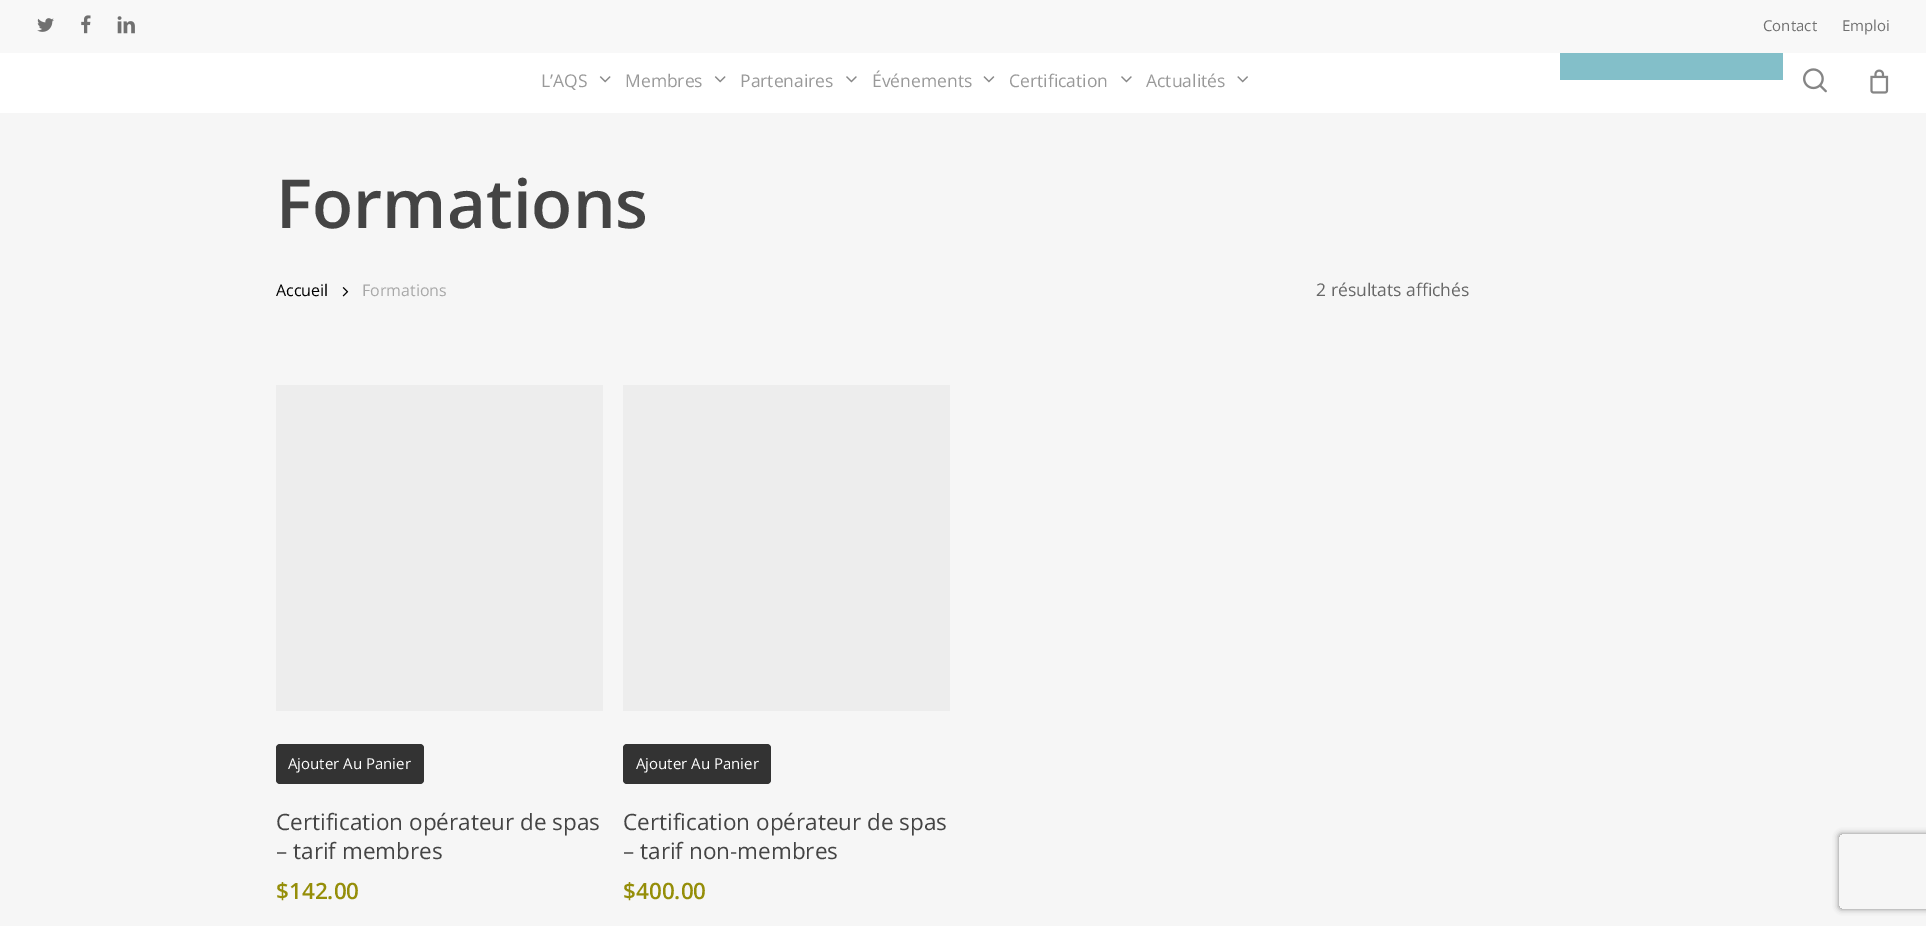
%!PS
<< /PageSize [1926 926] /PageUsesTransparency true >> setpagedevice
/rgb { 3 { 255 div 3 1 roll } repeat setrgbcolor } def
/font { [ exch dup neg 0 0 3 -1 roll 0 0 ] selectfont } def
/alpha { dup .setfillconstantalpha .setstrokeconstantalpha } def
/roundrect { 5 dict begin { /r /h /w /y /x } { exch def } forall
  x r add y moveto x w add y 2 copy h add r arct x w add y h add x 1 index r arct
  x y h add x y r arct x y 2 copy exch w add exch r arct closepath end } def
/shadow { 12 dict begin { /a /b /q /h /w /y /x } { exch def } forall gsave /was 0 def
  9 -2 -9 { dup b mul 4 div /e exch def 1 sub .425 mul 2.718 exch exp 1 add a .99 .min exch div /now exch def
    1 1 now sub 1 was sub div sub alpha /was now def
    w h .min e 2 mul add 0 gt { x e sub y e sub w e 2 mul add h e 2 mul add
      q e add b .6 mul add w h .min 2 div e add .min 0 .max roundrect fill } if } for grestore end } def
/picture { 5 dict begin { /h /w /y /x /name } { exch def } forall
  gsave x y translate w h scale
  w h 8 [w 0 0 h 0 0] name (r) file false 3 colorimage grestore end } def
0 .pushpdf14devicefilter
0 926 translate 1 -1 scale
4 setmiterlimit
255 255 255 rgb
0 0 1926 926 rectfill
248 248 248 rgb
0 0 1926 53 rectfill
(img/1.rgb) 37 18 17 14 picture
(img/2.rgb) 81 15 10 19 picture
(img/3.rgb) 117 16 18 18 picture
(img/4.rgb) 599 76 12 7 picture
(img/4.rgb) 714 76 12 7 picture
(img/5.rgb) 846 76 11 7 picture
(img/6.rgb) 983 76 12 7 picture
(img/5.rgb) 1121 76 11 7 picture
(img/7.rgb) 1237 76 11 7 picture
131 191 201 rgb
1560 53 223 27 rectfill
(img/8.rgb) 1803 68 24 25 picture
(img/9.rgb) 1870 69 19 25 picture
246 246 246 rgb
0 113 1926 813 rectfill
(img/10.rgb) 342 287 7 10 picture
237 237 237 rgb
276 385 327 326 rectfill
51 51 51 rgb
276 744 148 40 4 roundrect fill
237 237 237 rgb
623 385 327 326 rectfill
51 51 51 rgb
623 744 148 40 4 roundrect fill
gsave
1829 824 moveto 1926 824 lineto 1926 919 lineto 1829 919 lineto closepath 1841.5 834 moveto 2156.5 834 lineto 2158 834 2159 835 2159 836.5 curveto 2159 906.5 lineto 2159 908 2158 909 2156.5 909 curveto 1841.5 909 lineto 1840 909 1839 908 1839 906.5 curveto 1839 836.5 lineto 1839 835 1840 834 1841.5 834 curveto closepath eoclip newpath
128 128 128 rgb
1839 834 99 75 2.5 3 1 shadow
grestore
/OpenSans-Regular 15 font
112 112 112 rgb
1763 31 moveto (Contact) show
1842 31 moveto (Emploi) show
/OpenSans-Regular 17.5 font
153 153 153 rgb
[
  [(L’AQS) 541 87]
  [(Membres) 625 87]
  [(Partenaires) 740 87]
  [(Événements) 872 87]
  [(Certification) 1009 87]
  [(Actualités) 1146 87]
] { aload pop moveto show } forall
/OpenSans-SemiBold 67.5 font
68 68 68 rgb
276 228 moveto (Formations) show
/OpenSans-Regular 16 font
0 0 0 rgb
276 296 moveto (Accueil) show
167 167 167 rgb
362 296 moveto (Formations) show
/OpenSans-Regular 17.5 font
103 103 103 rgb
1316 296 moveto (2 résultats affichés) show
/OpenSans-Regular 15 font
255 255 255 rgb
288 769 moveto (Ajouter Au Panier) show
/OpenSans-Regular 22.5 font
68 68 68 rgb
276 830 moveto (Certification opérateur de spas) show
276 859 moveto (– tarif membres) show
/OpenSans-SemiBold 22.5 font
149 142 9 rgb
276 899 moveto ($142.00) show
/OpenSans-Regular 15 font
255 255 255 rgb
636 769 moveto (Ajouter Au Panier) show
/OpenSans-Regular 22.5 font
68 68 68 rgb
623 830 moveto (Certification opérateur de spas) show
623 859 moveto (– tarif non-membres) show
/OpenSans-SemiBold 22.5 font
149 142 9 rgb
623 899 moveto ($400.00) show
.poppdf14devicefilter showpage
